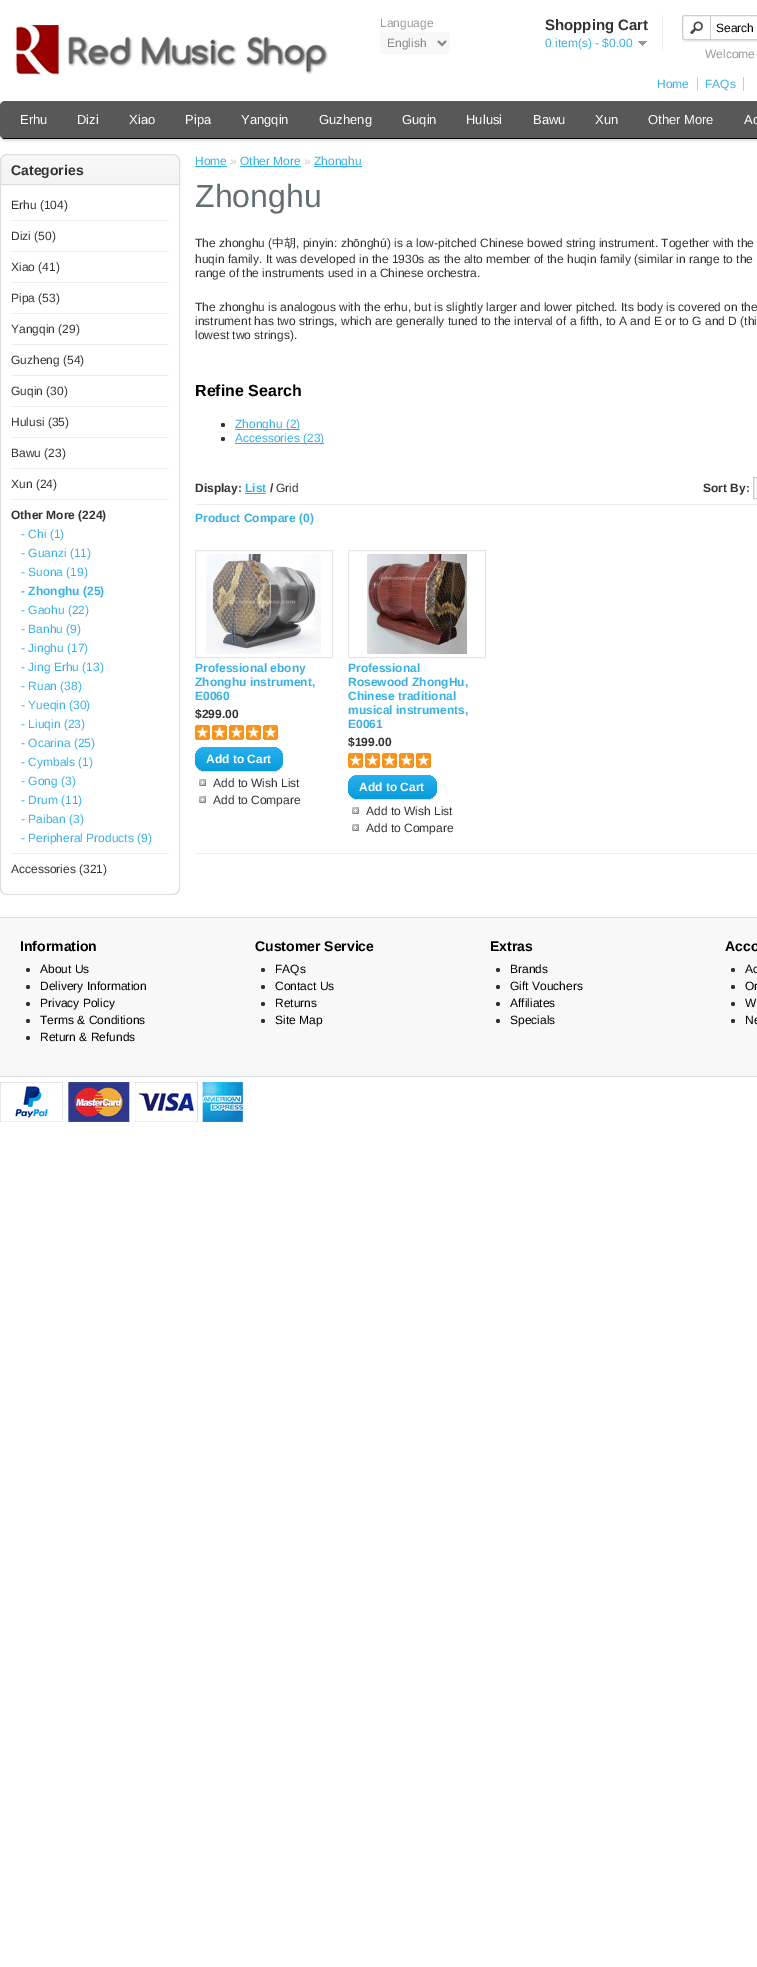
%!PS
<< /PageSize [757 1967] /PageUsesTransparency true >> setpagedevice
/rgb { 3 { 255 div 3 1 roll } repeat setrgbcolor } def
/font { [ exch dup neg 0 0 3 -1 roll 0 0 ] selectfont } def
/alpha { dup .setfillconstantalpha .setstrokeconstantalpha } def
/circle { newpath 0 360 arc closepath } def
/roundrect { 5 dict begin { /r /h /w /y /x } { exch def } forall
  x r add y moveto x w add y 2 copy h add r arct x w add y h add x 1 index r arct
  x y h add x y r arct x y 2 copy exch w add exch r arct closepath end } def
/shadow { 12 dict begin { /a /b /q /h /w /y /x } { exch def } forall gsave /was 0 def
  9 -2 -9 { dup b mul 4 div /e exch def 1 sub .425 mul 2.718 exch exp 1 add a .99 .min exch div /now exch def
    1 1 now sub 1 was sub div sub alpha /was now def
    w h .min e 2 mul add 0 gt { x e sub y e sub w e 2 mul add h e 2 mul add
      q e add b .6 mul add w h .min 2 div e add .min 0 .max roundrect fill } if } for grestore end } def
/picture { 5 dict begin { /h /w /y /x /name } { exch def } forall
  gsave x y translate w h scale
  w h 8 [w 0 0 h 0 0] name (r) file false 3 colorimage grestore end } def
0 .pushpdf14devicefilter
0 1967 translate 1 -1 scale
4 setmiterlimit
255 255 255 rgb
0 0 757 1967 rectfill
(img/1.rgb) 15 25 313 50 picture
248 248 248 rgb
380 32 70 22 3 roundrect fill
136 136 136 rgb
2 setlinewidth
438 41 moveto 442 45 lineto 446 41 lineto stroke
238 238 238 rgb
662 15 1 35 rectfill
(img/2.rgb) 638 41 9 5 picture
240 240 240 rgb
682 37 moveto 682 39 682 42 685 42 curveto 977 42 lineto 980 42 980 39 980 37 curveto 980 39 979 40 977 40 curveto 685 40 lineto 683 40 682 39 682 37 curveto closepath fill
204 204 204 rgb
1 setlinewidth
682.5 15.5 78 24 2.5 roundrect stroke
(img/3.rgb) 690 21 13 13 picture
[
  [710 15 1 24 204 204 204]
  [697 77 1 14 204 204 204]
  [743 77 1 14 204 204 204]
] { aload pop rgb rectfill } forall
221 221 221 rgb
0 103 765 38 5 1 1 shadow
88 88 88 rgb
0 101 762 38 5 roundrect fill
0 0 0 rgb
3 138 754 1 rectfill
(img/4.rgb) 0 155 180 29 picture
219 222 225 rgb
7 154.5 moveto 173 154.5 lineto 176.5 154.5 179.5 157.5 179.5 161 curveto 179.5 184.5 lineto 0.5 184.5 lineto 0.5 161 lineto 0.5 157.5 3.5 154.5 7 154.5 curveto closepath stroke
0 185 moveto 180 185 lineto 180 888 lineto 180 892 177 895 173 895 curveto 7 895 lineto 3 895 0 892 0 888 curveto closepath 1 185 moveto 179 185 lineto 179 888 lineto 179 891 176 894 173 894 curveto 7 894 lineto 4 894 1 891 1 888 curveto closepath eofill
[
  [11 220 158 1 238 238 238]
  [11 251 158 1 238 238 238]
  [11 282 158 1 238 238 238]
  [11 313 158 1 238 238 238]
  [11 344 158 1 238 238 238]
  [11 375 158 1 238 238 238]
  [11 406 158 1 238 238 238]
  [11 437 158 1 238 238 238]
  [11 468 158 1 238 238 238]
  [11 499 158 1 238 238 238]
  [11 853 158 1 238 238 238]
  [195 166 32 1 56 176 227]
  [240 166 61 1 56 176 227]
  [314 166 48 1 56 176 227]
] { aload pop rgb rectfill } forall
51 51 51 rgb
223 425 2 circle fill
56 176 227 rgb
235 429 65 1 rectfill
51 51 51 rgb
223 439 2 circle fill
[
  [235 443 89 1 56 176 227]
  [195 504 562 1 238 238 238]
  [245 493 21 1 56 176 227]
] { aload pop rgb rectfill } forall
248 248 248 rgb
753.5 477.5 moveto 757.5 477.5 lineto 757.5 498.5 lineto 753.5 498.5 lineto closepath gsave fill grestore
204 204 204 rgb
stroke
231 231 231 rgb
195.5 550.5 137 107 rectstroke
(img/5.rgb) 206 554 115 100 picture
(img/6.rgb) 195 725 83 15 picture
(img/7.rgb) 195 748 6 23 picture
(img/8.rgb) 201 747 82 25 picture
(img/9.rgb) 199 779 7 7 picture
(img/9.rgb) 199 796 7 7 picture
348.5 550.5 137 107 rectstroke
(img/10.rgb) 367 554 103 100 picture
(img/6.rgb) 348 753 83 15 picture
(img/7.rgb) 348 776 6 23 picture
(img/11.rgb) 354 775 83 25 picture
(img/9.rgb) 352 807 7 7 picture
(img/9.rgb) 352 824 7 7 picture
[
  [195 853 562 1 238 238 238]
  [0 918 757 158 248 248 248]
  [0 917 757 1 219 222 225]
  [0 1076 757 1 219 222 225]
] { aload pop rgb rectfill } forall
51 51 51 rgb
28 970 2 circle fill
28 987 2 circle fill
28 1004 2 circle fill
28 1021 2 circle fill
28 1038 2 circle fill
263 970 2 circle fill
263 987 2 circle fill
263 1004 2 circle fill
263 1021 2 circle fill
498 970 2 circle fill
498 987 2 circle fill
498 1004 2 circle fill
498 1021 2 circle fill
733 970 2 circle fill
733 987 2 circle fill
733 1004 2 circle fill
733 1021 2 circle fill
(img/12.rgb) 0 1082 243 40 picture
/LiberationSans-Regular 12 font
153 153 153 rgb
380 27 moveto (Language) show
136 136 136 rgb
387 47 moveto (English) show
/LiberationSans-Bold 15 font
51 51 51 rgb
545 30 moveto (Shopping Cart) show
/LiberationSans-Regular 12 font
56 176 227 rgb
545 47 moveto (0 item\(s\) - $0.00) show
0 0 0 rgb
716 32 moveto (Search) show
153 153 153 rgb
705 58 moveto (Welcome) show
56 176 227 rgb
657 88 moveto (Home) show
705 88 moveto (FAQs) show
/LiberationSans-Regular 13 font
255 255 255 rgb
[
  [(Erhu) 20 124]
  [(Dizi) 77 124]
  [(Xiao) 129 124]
  [(Pipa) 185 124]
  [(Yangqin) 241 124]
  [(Guzheng) 319 124]
  [(Guqin) 402 124]
  [(Hulusi) 466 124]
  [(Bawu) 533 124]
  [(Xun) 595 124]
  [(Other More) 648 124]
  [(Ac) 744 124]
] { aload pop moveto show } forall
/LiberationSans-Bold 14 font
51 51 51 rgb
11 175 moveto (Categories) show
/LiberationSans-Regular 12 font
[
  [(Erhu \(104\)) 11 209]
  [(Dizi \(50\)) 11 240]
  [(Xiao \(41\)) 11 271]
  [(Pipa \(53\)) 11 302]
  [(Yangqin \(29\)) 11 333]
  [(Guzheng \(54\)) 11 364]
  [(Guqin \(30\)) 11 395]
  [(Hulusi \(35\)) 11 426]
  [(Bawu \(23\)) 11 457]
  [(Xun \(24\)) 11 488]
] { aload pop moveto show } forall
/LiberationSans-Bold 12 font
11 519 moveto (Other More \(224\)) show
/LiberationSans-Regular 12 font
56 176 227 rgb
[
  [(- Chi \(1\)) 21 538]
  [(- Guanzi \(11\)) 21 557]
  [(- Suona \(19\)) 21 576]
] { aload pop moveto show } forall
/LiberationSans-Bold 12 font
21 595 moveto (- Zhonghu \(25\)) show
/LiberationSans-Regular 12 font
[
  [(- Gaohu \(22\)) 21 614]
  [(- Banhu \(9\)) 21 633]
  [(- Jinghu \(17\)) 21 652]
  [(- Jing Erhu \(13\)) 21 671]
  [(- Ruan \(38\)) 21 690]
  [(- Yueqin \(30\)) 21 709]
  [(- Liuqin \(23\)) 21 728]
  [(- Ocarina \(25\)) 21 747]
  [(- Cymbals \(1\)) 21 766]
  [(- Gong \(3\)) 21 785]
  [(- Drum \(11\)) 21 804]
  [(- Paiban \(3\)) 21 823]
  [(- Peripheral Products \(9\)) 21 842]
] { aload pop moveto show } forall
51 51 51 rgb
11 873 moveto (Accessories \(321\)) show
56 176 227 rgb
195 165 moveto (Home) show
204 204 204 rgb
230 165 moveto (») show
56 176 227 rgb
240 165 moveto (Other More) show
204 204 204 rgb
304 165 moveto (») show
56 176 227 rgb
314 165 moveto (Zhonghu) show
/LiberationSans-Regular 32 font
99 110 117 rgb
195 207 moveto (Zhonghu) show
/LiberationSans-Regular 12 font
51 51 51 rgb
195 247 moveto (The zhonghu \() show
/WenQuanYiZenHei-Medium 12 font
272 247 moveto (中胡) show
/LiberationSans-Regular 12 font
[
  [(, pinyin: zhōnghú\) is a low-pitched Chinese bowed string instrument. Together with the) 296 247]
  [(huqin family. It was developed in the 1930s as the alto member of the huqin family \(similar in range to the) 195 263]
  [(range of the instruments used in a Chinese orchestra.) 195 277]
  [(The zhonghu is analogous with the erhu, but is slightly larger and lower pitched. Its body is covered on the) 195 311]
  [(instrument has two strings, which are generally tuned to the interval of a fifth, to A and E or to G and D \(thi) 195 325]
  [(lowest two strings\).) 195 339]
] { aload pop moveto show } forall
/LiberationSans-Bold 16 font
0 0 0 rgb
195 396 moveto (Refine Search) show
/LiberationSans-Regular 12 font
56 176 227 rgb
235 428 moveto (Zhonghu \(2\)) show
235 442 moveto (Accessories \(23\)) show
/LiberationSans-Bold 12 font
51 51 51 rgb
195 492 moveto (Display:) show
56 176 227 rgb
245 492 moveto (List) show
51 51 51 rgb
270 492 moveto (/) show
/LiberationSans-Regular 12 font
276 492 moveto (Grid) show
/LiberationSans-Bold 12 font
703 492 moveto (Sort By:) show
56 176 227 rgb
[
  [(Product Compare \(0\)) 195 522]
  [(Professional ebony) 195 672]
  [(Zhonghu instrument,) 195 686]
  [(E0060) 195 700]
] { aload pop moveto show } forall
51 51 51 rgb
195 718 moveto ($299.00) show
255 255 255 rgb
206 763 moveto (Add to Cart) show
/LiberationSans-Regular 12 font
51 51 51 rgb
213 787 moveto (Add to Wish List) show
213 804 moveto (Add to Compare) show
/LiberationSans-Bold 12 font
56 176 227 rgb
[
  [(Professional) 348 672]
  [(Rosewood ZhongHu,) 348 686]
  [(Chinese traditional) 348 700]
  [(musical instruments,) 348 714]
  [(E0061) 348 728]
] { aload pop moveto show } forall
51 51 51 rgb
348 746 moveto ($199.00) show
255 255 255 rgb
359 791 moveto (Add to Cart) show
/LiberationSans-Regular 12 font
51 51 51 rgb
366 815 moveto (Add to Wish List) show
366 832 moveto (Add to Compare) show
/LiberationSans-Bold 14 font
0 0 0 rgb
20 951 moveto (Information) show
/LiberationSans-Regular 12 font
[
  [(About Us) 40 973]
  [(Delivery Information) 40 990]
  [(Privacy Policy) 40 1007]
  [(Terms & Conditions) 40 1024]
  [(Return & Refunds) 40 1041]
] { aload pop moveto show } forall
/LiberationSans-Bold 14 font
255 951 moveto (Customer Service) show
/LiberationSans-Regular 12 font
[
  [(FAQs) 275 973]
  [(Contact Us) 275 990]
  [(Returns) 275 1007]
  [(Site Map) 275 1024]
] { aload pop moveto show } forall
/LiberationSans-Bold 14 font
490 951 moveto (Extras) show
/LiberationSans-Regular 12 font
[
  [(Brands) 510 973]
  [(Gift Vouchers) 510 990]
  [(Affiliates) 510 1007]
  [(Specials) 510 1024]
] { aload pop moveto show } forall
/LiberationSans-Bold 14 font
725 951 moveto (Acco) show
/LiberationSans-Regular 12 font
[
  [(Ac) 745 973]
  [(Or) 745 990]
  [(W) 745 1007]
  [(Ne) 745 1024]
] { aload pop moveto show } forall
.poppdf14devicefilter showpage
